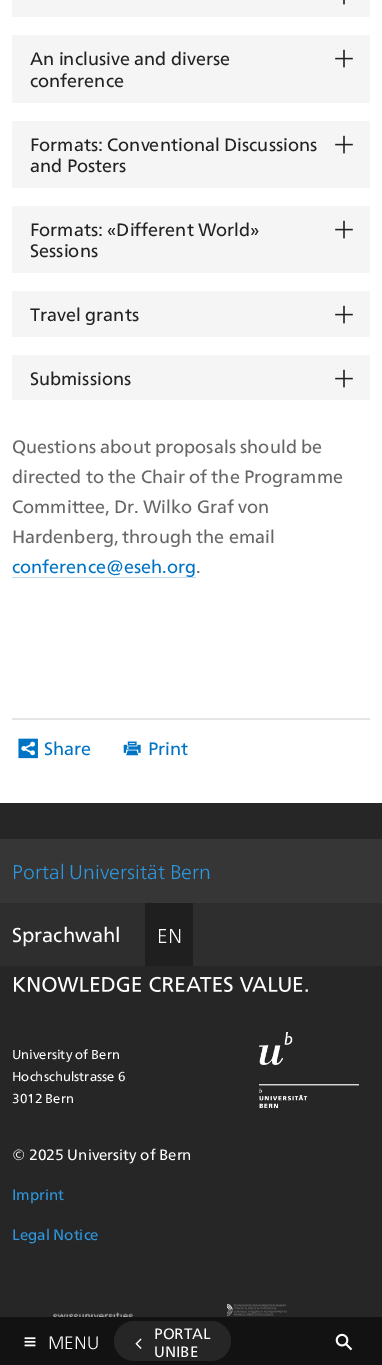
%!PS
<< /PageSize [382 1365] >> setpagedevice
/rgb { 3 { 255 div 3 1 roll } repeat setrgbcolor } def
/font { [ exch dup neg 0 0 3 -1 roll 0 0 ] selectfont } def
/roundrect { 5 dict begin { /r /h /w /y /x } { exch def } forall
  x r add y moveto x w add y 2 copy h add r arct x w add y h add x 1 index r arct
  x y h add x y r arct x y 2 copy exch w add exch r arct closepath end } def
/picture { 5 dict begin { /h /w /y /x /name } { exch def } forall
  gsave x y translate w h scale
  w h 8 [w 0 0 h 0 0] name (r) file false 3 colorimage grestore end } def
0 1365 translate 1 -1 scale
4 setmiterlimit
255 255 255 rgb
0 0 382 1365 rectfill
245 245 245 rgb
12 0 358 17 rectfill
(img/1.rgb) 343 0 2 5 picture
12 35 358 68 rectfill
(img/2.rgb) 335 49 18 19 picture
12 121 358 67 rectfill
(img/2.rgb) 335 135 18 19 picture
12 206 358 67 rectfill
(img/2.rgb) 335 220 18 19 picture
12 291 358 46 rectfill
(img/2.rgb) 335 305 18 19 picture
12 355 358 45 rectfill
(img/2.rgb) 335 369 18 19 picture
191 220 240 rgb
12 577 184 1 rectfill
229 229 229 rgb
12 718 358 2 rectfill
(img/3.rgb) 18 738 20 21 picture
(img/4.rgb) 123 741 18 15 picture
[
  [0 803 382 514 38 38 38]
  [0 839 382 64 54 54 54]
  [0 903 382 63 46 46 46]
  [145 903 48 63 31 31 31]
] { aload pop rgb rectfill } forall
(img/5.rgb) 14 976 294 16 picture
(img/6.rgb) 259 1032 100 76 picture
(img/7.rgb) 53 1312 80 5 picture
(img/8.rgb) 227 1303 60 14 picture
18 18 18 rgb
0 1317 382 48 rectfill
(img/9.rgb) 24 1337 12 10 picture
38 38 38 rgb
114 1321 117 40 20 roundrect fill
(img/10.rgb) 135 1338 7 11 picture
(img/11.rgb) 335 1333 18 18 picture
/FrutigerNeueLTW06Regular-Regular 18 font
34 34 34 rgb
[
  [(An inclusive and diverse) 30 65]
  [(conference) 30 87]
  [(Formats: Conventional Discussions) 30 151]
  [(and Posters) 30 172]
  [(Formats: «Different World») 30 236]
  [(Sessions) 30 257]
  [(Travel grants) 30 321]
  [(Submissions) 30 385]
] { aload pop moveto show } forall
102 102 102 rgb
[
  [(Questions about proposals should be) 12 453]
  [(directed to the Chair of the Programme) 12 483]
  [(Committee, Dr. Wilko Graf von) 12 513]
  [(Hardenberg, through the email) 12 543]
] { aload pop moveto show } forall
0 116 196 rgb
12 573 moveto (conference@eseh.org) show
102 102 102 rgb
196 573 moveto (.) show
0 116 196 rgb
44 755 moveto (Share) show
148 755 moveto (Print) show
/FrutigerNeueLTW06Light-Light 20 font
45 152 224 rgb
12 879 moveto (Portal Universität Bern) show
/FrutigerNeueLTW06Regular-Regular 20 font
255 255 255 rgb
12 942 moveto (Sprachwahl) show
/FrutigerNeueLTW06Light-Light 20 font
157 943 moveto (EN) show
/FrutigerNeueLTW06Regular-Regular 13 font
[
  [(University of Bern) 12 1059]
  [(Hochschulstrasse 6) 12 1081]
  [(3012 Bern) 12 1103]
] { aload pop moveto show } forall
/FrutigerNeueLTW06Regular-Regular 15 font
12 1160 moveto (© 2025 University of Bern) show
45 152 224 rgb
12 1200 moveto (Imprint) show
12 1240 moveto (Legal Notice) show
/FrutigerNeueLTW06Light-Light 18 font
255 255 255 rgb
48 1349 moveto (MENU) show
/FrutigerNeueLTW06Regular-Regular 15 font
154 1339 moveto (PORTAL) show
154 1357 moveto (UNIBE) show
showpage
